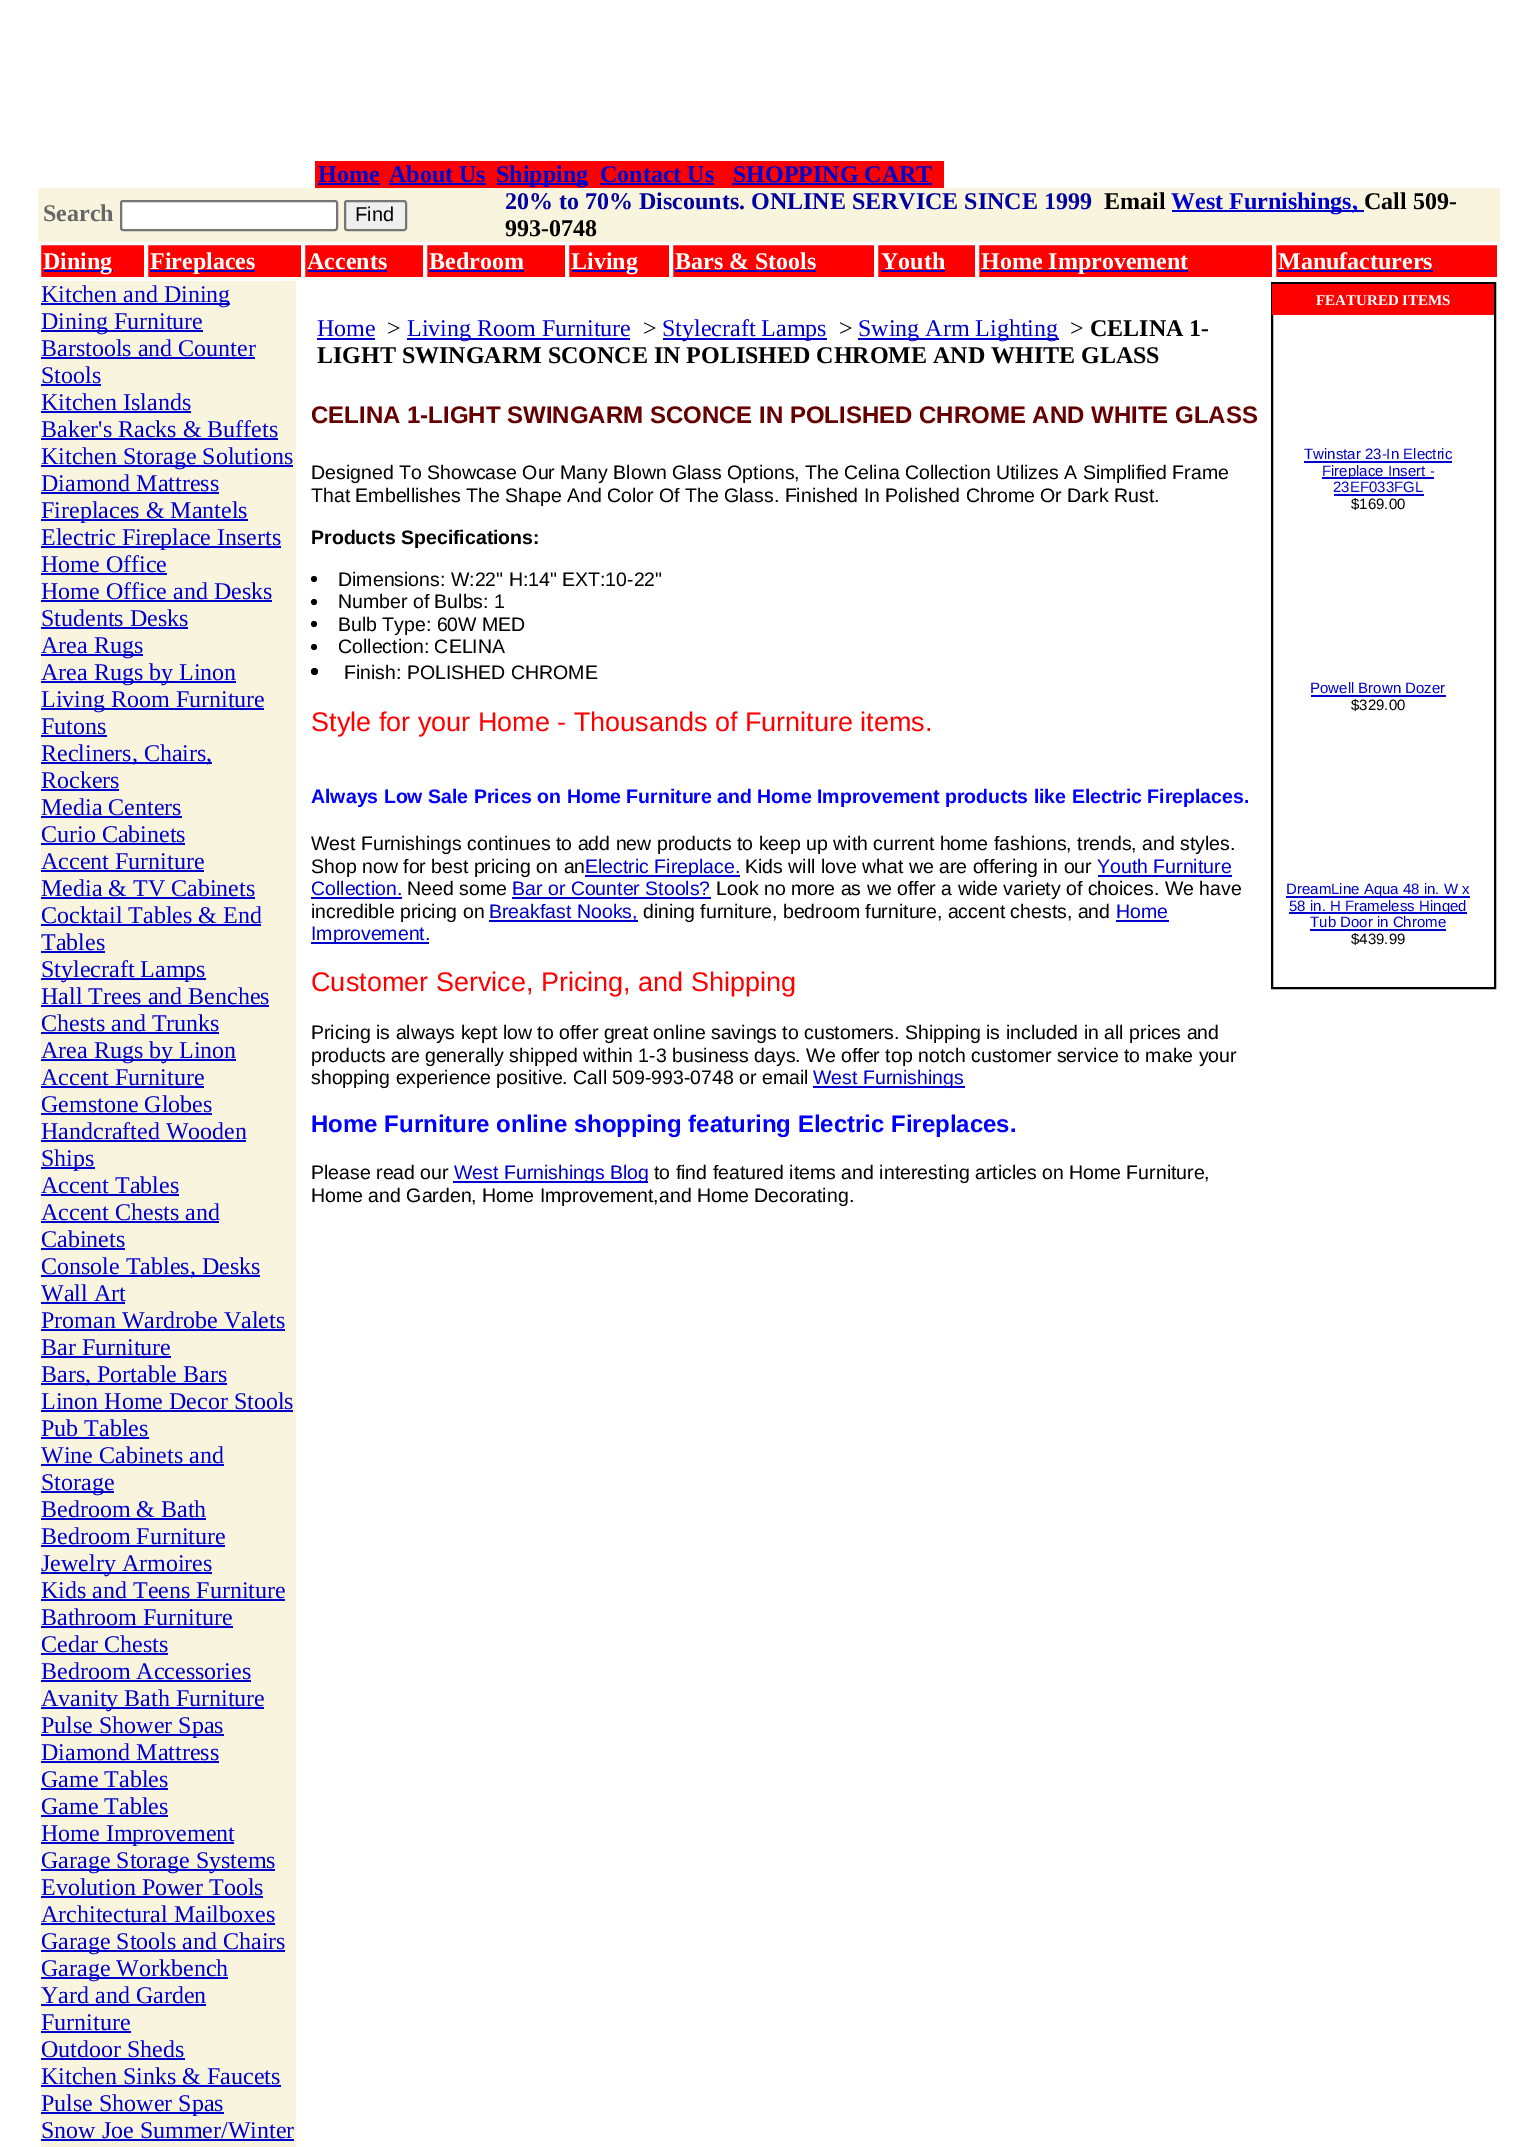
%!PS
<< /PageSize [1535 2147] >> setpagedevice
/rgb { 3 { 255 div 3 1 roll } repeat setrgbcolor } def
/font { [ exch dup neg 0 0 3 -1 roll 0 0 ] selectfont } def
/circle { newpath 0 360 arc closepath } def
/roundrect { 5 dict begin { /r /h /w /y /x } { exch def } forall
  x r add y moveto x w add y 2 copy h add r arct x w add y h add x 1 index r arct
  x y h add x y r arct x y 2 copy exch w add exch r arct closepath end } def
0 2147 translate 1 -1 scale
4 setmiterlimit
255 255 255 rgb
0 0 1535 2147 rectfill
[
  [315 161 629 27 255 0 0]
  [318 183 62 2 0 0 204]
  [389 183 97 2 0 0 204]
  [497 183 91 2 0 0 204]
  [600 183 114 2 0 0 204]
  [732 183 200 2 0 0 204]
  [38 188 1462 54 249 244 221]
] { aload pop rgb rectfill } forall
255 255 255 rgb
121 201 216 29 2 roundrect gsave fill grestore
118 118 118 rgb
2 setlinewidth
stroke
239 239 239 rgb
345 201 61 29 2 roundrect gsave fill grestore
118 118 118 rgb
stroke
0 0 204 rgb
1172 210 192 2 rectfill
255 0 0 rgb
41 245 1456 32 rectfill
255 255 255 rgb
40 244 105 34 rectstroke
0 0 204 rgb
44 270 69 2 rectfill
255 255 255 rgb
147 244 155 34 rectstroke
0 0 204 rgb
150 270 105 2 rectfill
255 255 255 rgb
304 244 120 34 rectstroke
0 0 204 rgb
308 270 79 2 rectfill
255 255 255 rgb
426 244 140 34 rectstroke
0 0 204 rgb
429 270 95 2 rectfill
255 255 255 rgb
568 244 102 34 rectstroke
0 0 204 rgb
572 270 66 2 rectfill
255 255 255 rgb
672 244 203 34 rectstroke
0 0 204 rgb
675 270 141 2 rectfill
255 255 255 rgb
877 244 99 34 rectstroke
0 0 204 rgb
881 270 64 2 rectfill
255 255 255 rgb
978 244 295 34 rectstroke
0 0 204 rgb
981 270 207 2 rectfill
255 255 255 rgb
1275 244 223 34 rectstroke
[
  [1278 270 155 2 0 0 204]
  [41 281 255 1866 249 244 221]
  [41 303 189 2 0 0 204]
  [41 330 162 2 0 0 204]
  [41 357 214 2 0 0 204]
  [41 384 60 2 0 0 204]
  [41 411 150 2 0 0 204]
  [41 438 237 2 0 0 204]
  [41 465 252 2 0 0 204]
  [41 492 178 2 0 0 204]
  [41 519 207 2 0 0 204]
  [41 546 240 2 0 0 204]
  [41 573 126 2 0 0 204]
  [41 600 231 2 0 0 204]
  [41 627 147 2 0 0 204]
  [41 654 102 2 0 0 204]
  [41 681 195 2 0 0 204]
  [41 708 223 2 0 0 204]
  [41 735 66 2 0 0 204]
  [41 762 171 2 0 0 204]
  [41 789 78 2 0 0 204]
  [41 816 141 2 0 0 204]
  [41 843 144 2 0 0 204]
  [41 870 163 2 0 0 204]
  [41 897 214 2 0 0 204]
  [41 924 220 2 0 0 204]
  [41 951 64 2 0 0 204]
  [41 978 165 2 0 0 204]
  [41 1005 228 2 0 0 204]
  [41 1032 178 2 0 0 204]
  [41 1059 195 2 0 0 204]
  [41 1086 163 2 0 0 204]
  [41 1113 171 2 0 0 204]
  [41 1140 205 2 0 0 204]
  [41 1167 54 2 0 0 204]
  [41 1194 138 2 0 0 204]
  [41 1221 178 2 0 0 204]
  [41 1248 84 2 0 0 204]
  [41 1275 219 2 0 0 204]
  [41 1302 84 2 0 0 204]
  [41 1329 244 2 0 0 204]
  [41 1356 130 2 0 0 204]
  [41 1383 186 2 0 0 204]
  [41 1410 252 2 0 0 204]
  [41 1437 108 2 0 0 204]
  [41 1464 183 2 0 0 204]
  [41 1491 73 2 0 0 204]
  [41 1518 165 2 0 0 204]
  [41 1545 184 2 0 0 204]
  [41 1572 171 2 0 0 204]
  [41 1599 244 2 0 0 204]
  [41 1626 192 2 0 0 204]
  [41 1653 127 2 0 0 204]
  [41 1680 210 2 0 0 204]
  [41 1707 223 2 0 0 204]
  [41 1734 183 2 0 0 204]
  [41 1761 178 2 0 0 204]
  [41 1788 127 2 0 0 204]
  [41 1815 127 2 0 0 204]
  [41 1842 193 2 0 0 204]
  [41 1869 234 2 0 0 204]
  [41 1896 222 2 0 0 204]
  [41 1923 234 2 0 0 204]
  [41 1950 244 2 0 0 204]
  [41 1977 187 2 0 0 204]
  [41 2004 165 2 0 0 204]
  [41 2031 90 2 0 0 204]
  [41 2058 144 2 0 0 204]
  [41 2085 240 2 0 0 204]
  [41 2112 183 2 0 0 204]
  [41 2139 253 2 0 0 204]
  [317 338 58 2 0 0 204]
  [407 338 223 2 0 0 204]
  [663 338 164 2 0 0 204]
  [858 338 201 2 0 0 204]
] { aload pop rgb rectfill } forall
0 0 0 rgb
314 579 3 circle fill
314 602 3 circle fill
314 624 3 circle fill
314 647 3 circle fill
314.5 671.5 3.5 circle fill
[
  [585 875 155 2 0 0 204]
  [1098 875 134 2 0 0 204]
  [311 897 91 2 0 0 204]
  [512 897 199 2 0 0 204]
  [489 920 149 2 0 0 204]
  [1116 920 53 2 0 0 204]
  [311 942 118 2 0 0 204]
  [813 1086 152 2 0 0 204]
  [453 1181 195 2 0 0 204]
] { aload pop rgb rectfill } forall
0 0 0 rgb
1272 283 223 705 rectstroke
[
  [1272 284 222 31 255 0 0]
  [1304 461 148 2 0 0 204]
  [1322 477 112 2 0 0 204]
  [1334 494 90 2 0 0 204]
  [1311 695 135 2 0 0 204]
  [1286 896 184 2 0 0 204]
  [1289 912 178 2 0 0 204]
  [1310 929 136 2 0 0 204]
] { aload pop rgb rectfill } forall
/LiberationSerif-Bold 24 font
[
  [(Home) 318 182]
  [(About Us) 389 182]
  [(Shipping) 496 182]
  [(Contact Us) 600 182]
  [(SHOPPING CART) 733 182]
] { aload pop moveto show } forall
102 102 102 rgb
43 221 moveto (Search) show
/LiberationSans-Regular 20 font
0 0 0 rgb
355 221 moveto (Find) show
/LiberationSerif-Bold 24 font
0 0 160 rgb
505 209 moveto (20% to 70% Discounts. ONLINE SERVICE SINCE 1999) show
0 0 0 rgb
1104 209 moveto (Email) show
0 0 204 rgb
1171 209 moveto (West Furnishings,) show
0 0 0 rgb
1364 209 moveto (Call 509-) show
505 236 moveto (993-0748) show
255 255 255 rgb
[
  [(Dining) 43 269]
  [(Fireplaces) 150 269]
  [(Accents) 307 269]
  [(Bedroom) 429 269]
  [(Living) 571 269]
  [(Bars & Stools) 675 269]
  [(Youth) 881 269]
  [(Home Improvement) 981 269]
  [(Manufacturers) 1278 269]
] { aload pop moveto show } forall
/LiberationSerif-Regular 24 font
0 0 204 rgb
[
  [(Kitchen and Dining) 41 302]
  [(Dining Furniture) 41 329]
  [(Barstools and Counter) 41 356]
  [(Stools) 41 383]
  [(Kitchen Islands) 41 410]
  [(Baker's Racks & Buffets) 41 437]
  [(Kitchen Storage Solutions) 41 464]
  [(Diamond Mattress) 41 491]
  [(Fireplaces & Mantels) 41 518]
  [(Electric Fireplace Inserts) 41 545]
  [(Home Office) 41 572]
  [(Home Office and Desks) 41 599]
  [(Students Desks) 41 626]
  [(Area Rugs) 41 653]
  [(Area Rugs by Linon) 41 680]
  [(Living Room Furniture) 41 707]
  [(Futons) 41 734]
  [(Recliners, Chairs,) 41 761]
  [(Rockers) 41 788]
  [(Media Centers) 41 815]
  [(Curio Cabinets) 41 842]
  [(Accent Furniture) 41 869]
  [(Media & TV Cabinets) 41 896]
  [(Cocktail Tables & End) 41 923]
  [(Tables) 41 950]
  [(Stylecraft Lamps) 41 977]
  [(Hall Trees and Benches) 41 1004]
  [(Chests and Trunks) 41 1031]
  [(Area Rugs by Linon) 41 1058]
  [(Accent Furniture) 41 1085]
  [(Gemstone Globes) 41 1112]
  [(Handcrafted Wooden) 41 1139]
  [(Ships) 41 1166]
  [(Accent Tables) 41 1193]
  [(Accent Chests and) 41 1220]
  [(Cabinets) 41 1247]
  [(Console Tables, Desks) 41 1274]
  [(Wall Art) 41 1301]
  [(Proman Wardrobe Valets) 41 1328]
  [(Bar Furniture) 41 1355]
  [(Bars, Portable Bars) 41 1382]
  [(Linon Home Decor Stools) 41 1409]
  [(Pub Tables) 41 1436]
  [(Wine Cabinets and) 41 1463]
  [(Storage) 41 1490]
  [(Bedroom & Bath) 41 1517]
  [(Bedroom Furniture) 41 1544]
  [(Jewelry Armoires) 41 1571]
  [(Kids and Teens Furniture) 41 1598]
  [(Bathroom Furniture) 41 1625]
  [(Cedar Chests) 41 1652]
  [(Bedroom Accessories) 41 1679]
  [(Avanity Bath Furniture) 41 1706]
  [(Pulse Shower Spas) 41 1733]
  [(Diamond Mattress) 41 1760]
  [(Game Tables) 41 1787]
  [(Game Tables) 41 1814]
  [(Home Improvement) 41 1841]
  [(Garage Storage Systems) 41 1868]
  [(Evolution Power Tools) 41 1895]
  [(Architectural Mailboxes) 41 1922]
  [(Garage Stools and Chairs) 41 1949]
  [(Garage Workbench) 41 1976]
  [(Yard and Garden) 41 2003]
  [(Furniture) 41 2030]
  [(Outdoor Sheds) 41 2057]
  [(Kitchen Sinks & Faucets) 41 2084]
  [(Pulse Shower Spas) 41 2111]
  [(Snow Joe Summer/Winter) 41 2138]
  [(Home) 317 336]
] { aload pop moveto show } forall
0 0 0 rgb
387 336 moveto (>) show
0 0 204 rgb
407 336 moveto (Living Room Furniture) show
0 0 0 rgb
643 336 moveto (>) show
0 0 204 rgb
662 336 moveto (Stylecraft Lamps) show
0 0 0 rgb
839 336 moveto (>) show
0 0 204 rgb
858 336 moveto (Swing Arm Lighting) show
0 0 0 rgb
1070 336 moveto (>) show
/LiberationSerif-Bold 24 font
1090 336 moveto (CELINA 1-) show
317 363 moveto (LIGHT SWINGARM SCONCE IN POLISHED CHROME AND WHITE GLASS) show
/LiberationSans-Bold 24 font
102 0 0 rgb
311 423 moveto (CELINA 1-LIGHT SWINGARM SCONCE IN POLISHED CHROME AND WHITE GLASS) show
/LiberationSans-Regular 19.5 font
0 0 0 rgb
311 479 moveto (Designed To Showcase Our Many Blown Glass Options, The Celina Collection Utilizes A Simplified Frame) show
311 502 moveto (That Embellishes The Shape And Color Of The Glass. Finished In Polished Chrome Or Dark Rust.) show
/LiberationSans-Bold 19.5 font
311 544 moveto (Products Specifications:) show
/LiberationSans-Regular 19.5 font
[
  [(Dimensions: W:22" H:14" EXT:10-22") 338 586]
  [(Number of Bulbs: 1) 338 608]
  [(Bulb Type: 60W MED) 338 631]
  [(Collection: CELINA) 338 653]
  [(Finish: POLISHED CHROME) 344 679]
] { aload pop moveto show } forall
/LiberationSans-Regular 27 font
255 0 0 rgb
311 731 moveto (Style for your Home - Thousands of Furniture items.) show
/LiberationSans-Bold 19.5 font
0 0 255 rgb
311 803 moveto (Always Low Sale Prices on Home Furniture and Home Improvement products like Electric Fireplaces.) show
/LiberationSans-Regular 19.5 font
0 0 0 rgb
311 850 moveto (West Furnishings continues to add new products to keep up with current home fashions, trends, and styles.) show
311 873 moveto (Shop now for best pricing on an) show
0 0 204 rgb
585 873 moveto (Electric Fireplace.) show
0 0 0 rgb
745 873 moveto (Kids will love what we are offering in our) show
0 0 204 rgb
1097 873 moveto (Youth Furniture) show
311 895 moveto (Collection.) show
0 0 0 rgb
407 895 moveto (Need some) show
0 0 204 rgb
512 895 moveto (Bar or Counter Stools?) show
0 0 0 rgb
716 895 moveto (Look no more as we offer a wide variety of choices. We have) show
311 918 moveto (incredible pricing on) show
0 0 204 rgb
489 918 moveto (Breakfast Nooks,) show
0 0 0 rgb
643 918 moveto (dining furniture, bedroom furniture, accent chests, and) show
0 0 204 rgb
1116 918 moveto (Home) show
311 940 moveto (Improvement.) show
/LiberationSans-Regular 27 font
255 0 0 rgb
311 991 moveto (Customer Service, Pricing, and Shipping) show
/LiberationSans-Regular 19.5 font
0 0 0 rgb
[
  [(Pricing is always kept low to offer great online savings to customers. Shipping is included in all prices and) 311 1039]
  [(products are generally shipped within 1-3 business days. We offer top notch customer service to make your) 311 1062]
  [(shopping experience positive. Call 509-993-0748 or email) 311 1084]
] { aload pop moveto show } forall
0 0 204 rgb
813 1084 moveto (West Furnishings) show
/LiberationSans-Bold 24 font
0 0 255 rgb
311 1132 moveto (Home Furniture online shopping featuring Electric Fireplaces.) show
/LiberationSans-Regular 19.5 font
0 0 0 rgb
311 1179 moveto (Please read our) show
0 0 204 rgb
454 1179 moveto (West Furnishings Blog) show
0 0 0 rgb
654 1179 moveto (to find featured items and interesting articles on Home Furniture,) show
311 1202 moveto (Home and Garden, Home Improvement,and Home Decorating.) show
/LiberationSerif-Bold 15 font
255 255 255 rgb
1316 305 moveto (FEATURED ITEMS) show
/LiberationSans-Regular 15 font
0 0 204 rgb
[
  [(Twinstar 23-In Electric) 1304 459]
  [(Fireplace Insert -) 1322 476]
  [(23EF033FGL) 1333 492]
] { aload pop moveto show } forall
0 0 0 rgb
1351 509 moveto ($169.00) show
0 0 204 rgb
1310 693 moveto (Powell Brown Dozer) show
0 0 0 rgb
1351 710 moveto ($329.00) show
0 0 204 rgb
[
  [(DreamLine Aqua 48 in. W x) 1286 894]
  [(58 in. H Frameless Hinged) 1289 911]
  [(Tub Door in Chrome) 1310 927]
] { aload pop moveto show } forall
0 0 0 rgb
1351 944 moveto ($439.99) show
showpage
